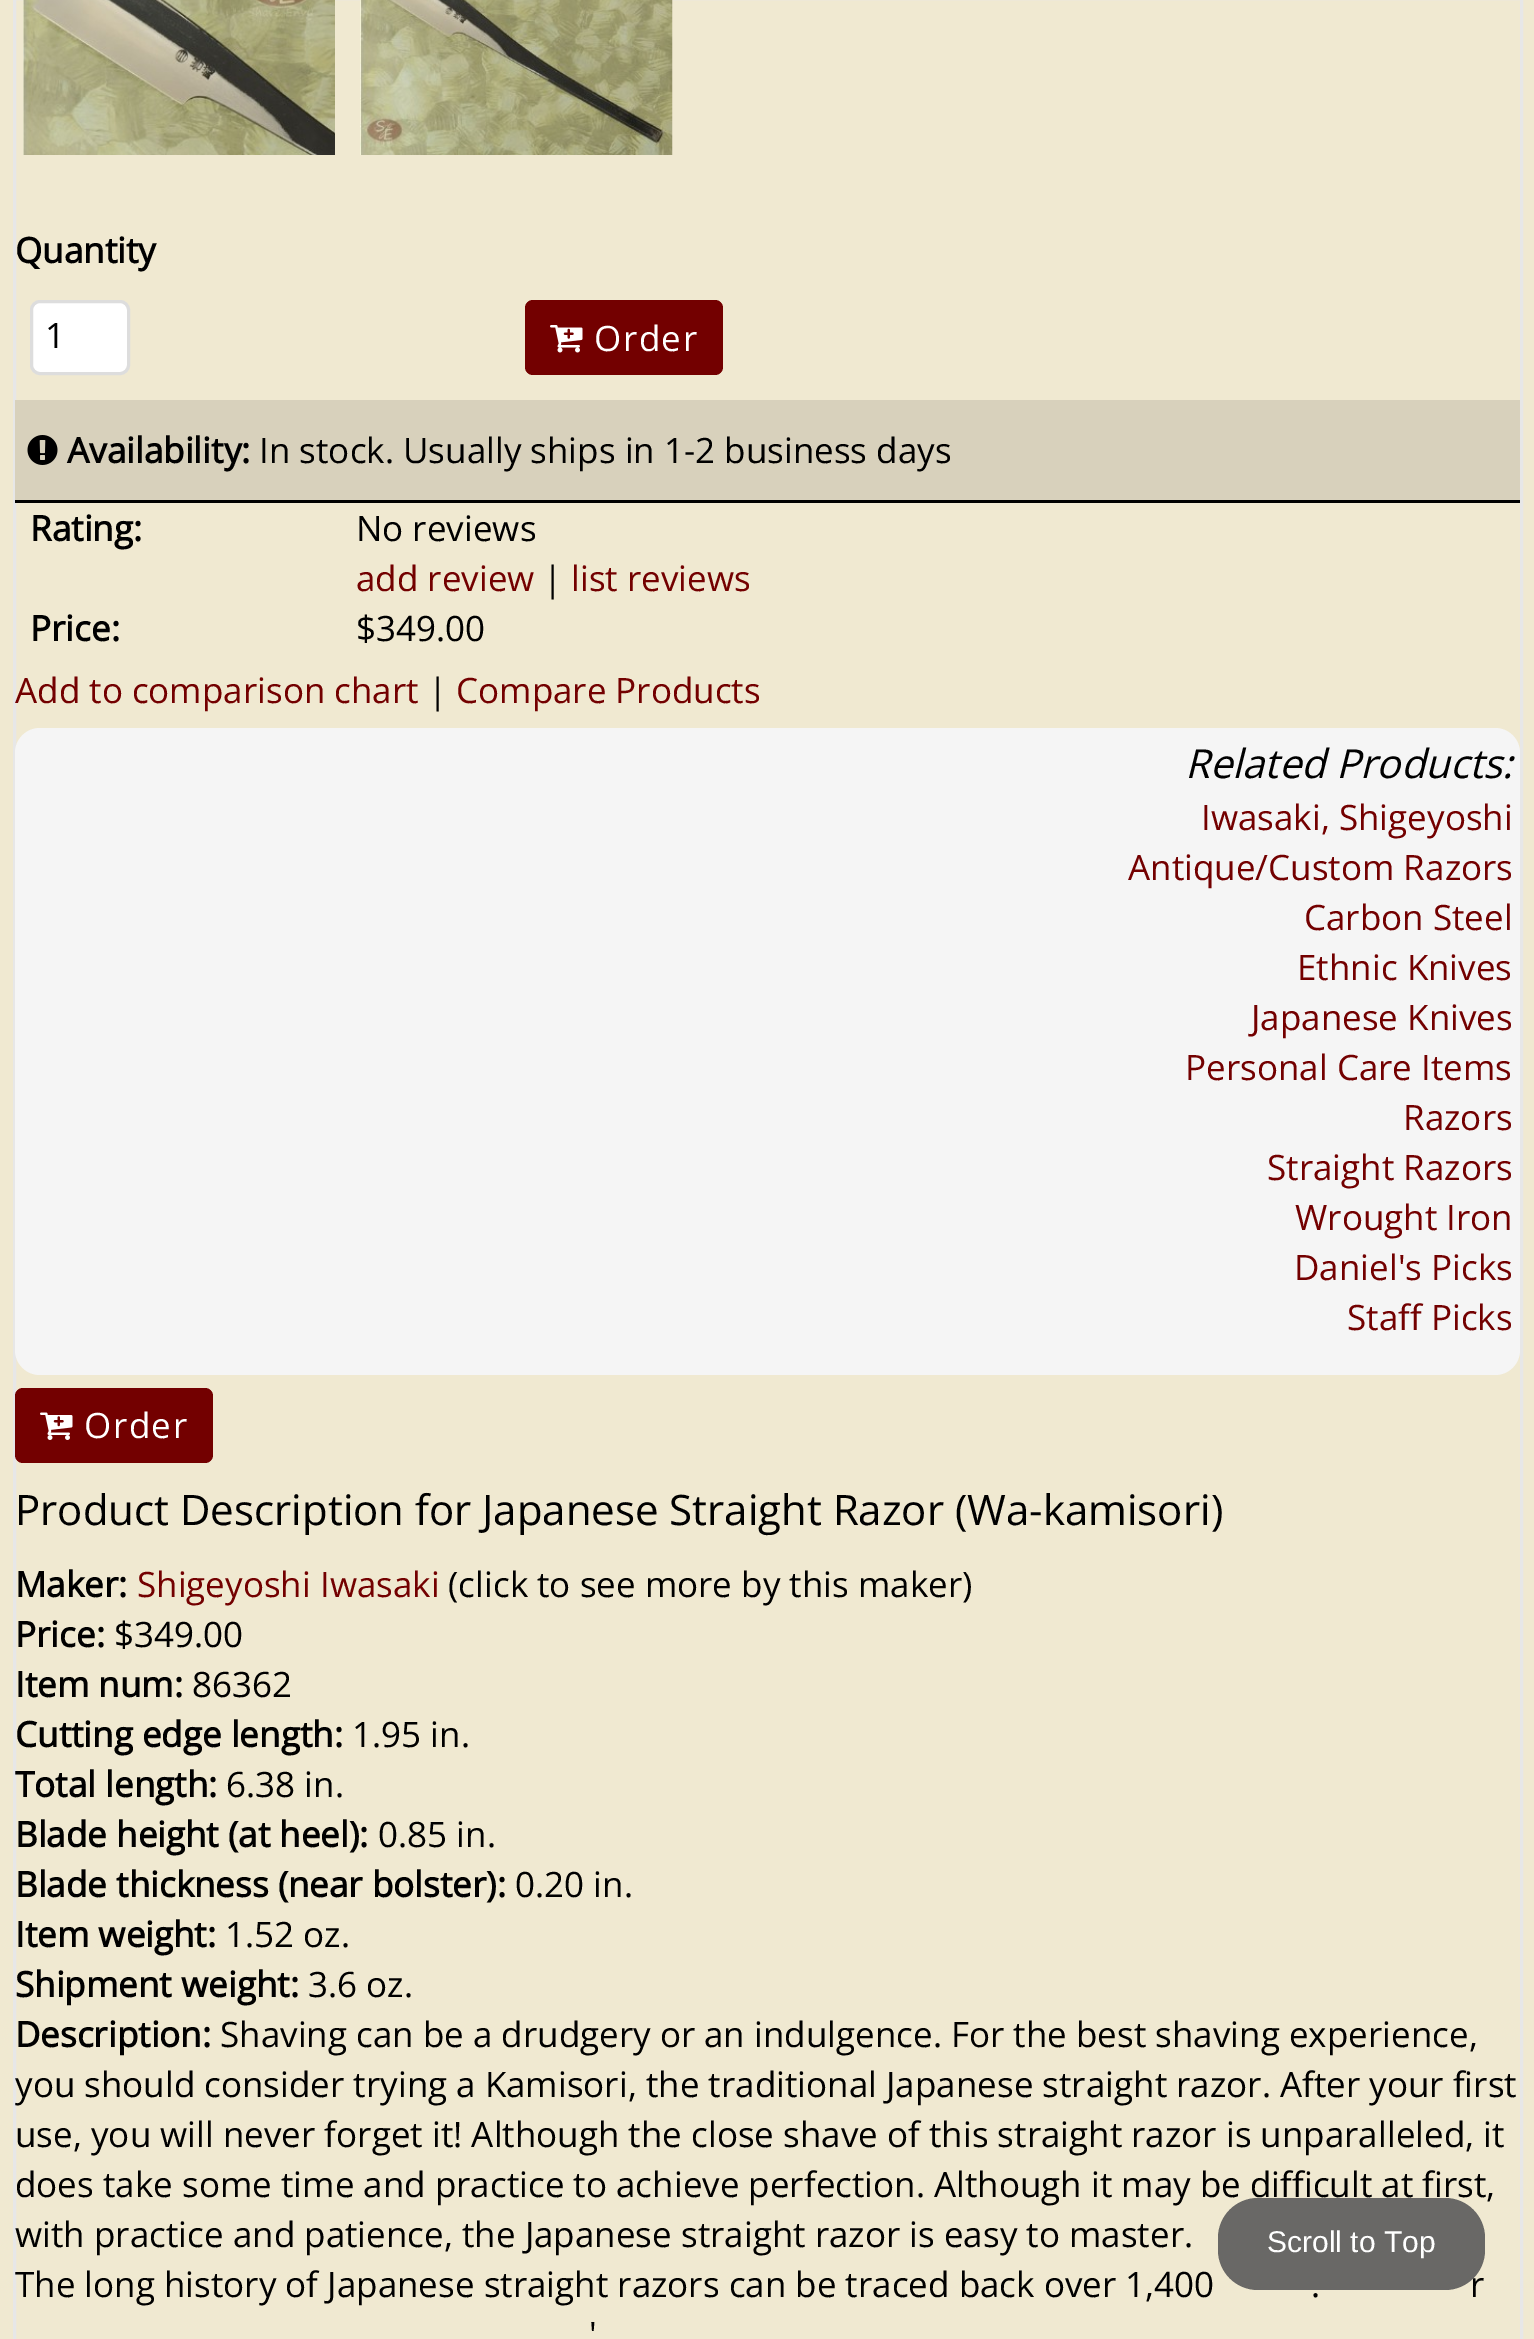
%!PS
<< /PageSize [1534 2339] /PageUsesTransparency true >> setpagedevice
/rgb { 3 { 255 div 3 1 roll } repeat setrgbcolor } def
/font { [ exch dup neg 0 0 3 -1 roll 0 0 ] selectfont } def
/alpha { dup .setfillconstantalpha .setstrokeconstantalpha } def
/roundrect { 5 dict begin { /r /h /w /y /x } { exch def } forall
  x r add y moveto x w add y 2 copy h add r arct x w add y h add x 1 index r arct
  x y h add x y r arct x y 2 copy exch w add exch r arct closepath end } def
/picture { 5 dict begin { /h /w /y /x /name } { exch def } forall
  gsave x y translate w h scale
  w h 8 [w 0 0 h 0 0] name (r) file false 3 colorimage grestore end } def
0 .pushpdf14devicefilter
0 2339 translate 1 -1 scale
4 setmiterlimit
240 233 209 rgb
0 0 1534 2339 rectfill
231 231 231 rgb
3 setlinewidth
14.5 -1.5 1507 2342 rectstroke
(img/1.rgb) 23 0 312 155 picture
(img/2.rgb) 360 0 313 155 picture
255 255 255 rgb
31.5 301.5 97 72 8.5 roundrect gsave fill grestore
221 221 221 rgb
stroke
115 0 0 rgb
525 300 198 75 8 roundrect fill
(img/3.rgb) 550 325 33 28 picture
216 209 188 rgb
15 400 1505 100 rectfill
0 0 0 rgb
15 500 1505 3 rectfill
(img/4.rgb) 27 435 31 30 picture
245 245 245 rgb
15 728 1505 647 25 roundrect fill
115 0 0 rgb
15 1388 198 75 8 roundrect fill
(img/5.rgb) 40 1412 33 28 picture
/OpenSans-Bold 35 font
0 0 0 rgb
15 263 moveto (Quantity) show
/OpenSans-Regular 35 font
45 348 moveto (1) show
255 255 255 rgb
594 351 moveto 1.5 0 (Order) ashow
/OpenSans-Bold 35 font
0 0 0 rgb
67 463 moveto (Availability:) show
/OpenSans-Regular 35 font
259 463 moveto (In stock. Usually ships in 1-2 business days) show
/OpenSans-Bold 35 font
30 541 moveto (Rating:) show
/OpenSans-Regular 35 font
356 541 moveto (No reviews) show
115 0 0 rgb
356 591 moveto (add review) show
0 0 0 rgb
543 591 moveto (|) show
115 0 0 rgb
571 591 moveto (list reviews) show
/OpenSans-Bold 35 font
0 0 0 rgb
30 641 moveto (Price:) show
/OpenSans-Regular 35 font
356 641 moveto ($349.00) show
115 0 0 rgb
15 703 moveto (Add to comparison chart) show
0 0 0 rgb
428 703 moveto (|) show
115 0 0 rgb
456 703 moveto (Compare Products) show
/OpenSans-Italic 40 font
0 0 0 rgb
1185 778 moveto (Related Products:) show
/OpenSans-Regular 35 font
115 0 0 rgb
[
  [(Iwasaki, Shigeyoshi) 1201 830]
  [(Antique/Custom Razors) 1128 880]
  [(Carbon Steel) 1304 930]
  [(Ethnic Knives) 1297 980]
  [(Japanese Knives) 1251 1030]
  [(Personal Care Items) 1185 1080]
  [(Razors) 1403 1130]
  [(Straight Razors) 1267 1180]
  [(Wrought Iron) 1295 1230]
  [(Daniel's Picks) 1294 1280]
  [(Staff Picks) 1347 1330]
] { aload pop moveto show } forall
255 255 255 rgb
84 1438 moveto 1.5 0 (Order) ashow
/OpenSans-Regular 42 font
0 0 0 rgb
15 1525 moveto -0.25 0 32 (Product Description for Japanese Straight Razor \(Wa-kamisori\)) widthshow
/OpenSans-Bold 35 font
15 1597 moveto (Maker:) show
/OpenSans-Regular 35 font
115 0 0 rgb
137 1597 moveto (Shigeyoshi Iwasaki) show
0 0 0 rgb
448 1597 moveto (\(click to see more by this maker\)) show
/OpenSans-Bold 35 font
15 1647 moveto (Price:) show
/OpenSans-Regular 35 font
114 1647 moveto ($349.00) show
/OpenSans-Bold 35 font
15 1697 moveto (Item num:) show
/OpenSans-Regular 35 font
192 1697 moveto (86362) show
/OpenSans-Bold 35 font
15 1747 moveto (Cutting edge length:) show
/OpenSans-Regular 35 font
352 1747 moveto (1.95 in.) show
/OpenSans-Bold 35 font
15 1797 moveto (Total length:) show
/OpenSans-Regular 35 font
226 1797 moveto (6.38 in.) show
/OpenSans-Bold 35 font
15 1847 moveto (Blade height \(at heel\):) show
/OpenSans-Regular 35 font
378 1847 moveto (0.85 in.) show
/OpenSans-Bold 35 font
15 1897 moveto (Blade thickness \(near bolster\):) show
/OpenSans-Regular 35 font
515 1897 moveto (0.20 in.) show
/OpenSans-Bold 35 font
15 1947 moveto (Item weight:) show
/OpenSans-Regular 35 font
225 1947 moveto (1.52 oz.) show
/OpenSans-Bold 35 font
15 1997 moveto (Shipment weight:) show
/OpenSans-Regular 35 font
308 1997 moveto (3.6 oz.) show
/OpenSans-Bold 35 font
15 2047 moveto (Description:) show
/OpenSans-Regular 35 font
[
  [(Shaving can be a drudgery or an indulgence. For the best shaving experience,) 220 2047]
  [(you should consider trying a Kamisori, the traditional Japanese straight razor. After your first) 15 2097]
  [(use, you will never forget it! Although the close shave of this straight razor is unparalleled, it) 15 2147]
  [(does take some time and practice to achieve perfection. Although it may be difficult at first,) 15 2197]
  [(with practice and patience, the Japanese straight razor is easy to master.) 15 2247]
  [(The long history of Japanese straight razors can be traced back over 1,400) 15 2297]
  [(.) 1311 2297]
  [(r) 1470 2297]
  [(') 589 2347]
] { aload pop moveto show } forall
0.9 alpha
90 90 90 rgb
1218 2198 267 92 40 roundrect fill
/LiberationSans-Regular 30 font
1 alpha
255 255 255 rgb
1267 2252 moveto (Scroll to Top) show
.poppdf14devicefilter showpage
